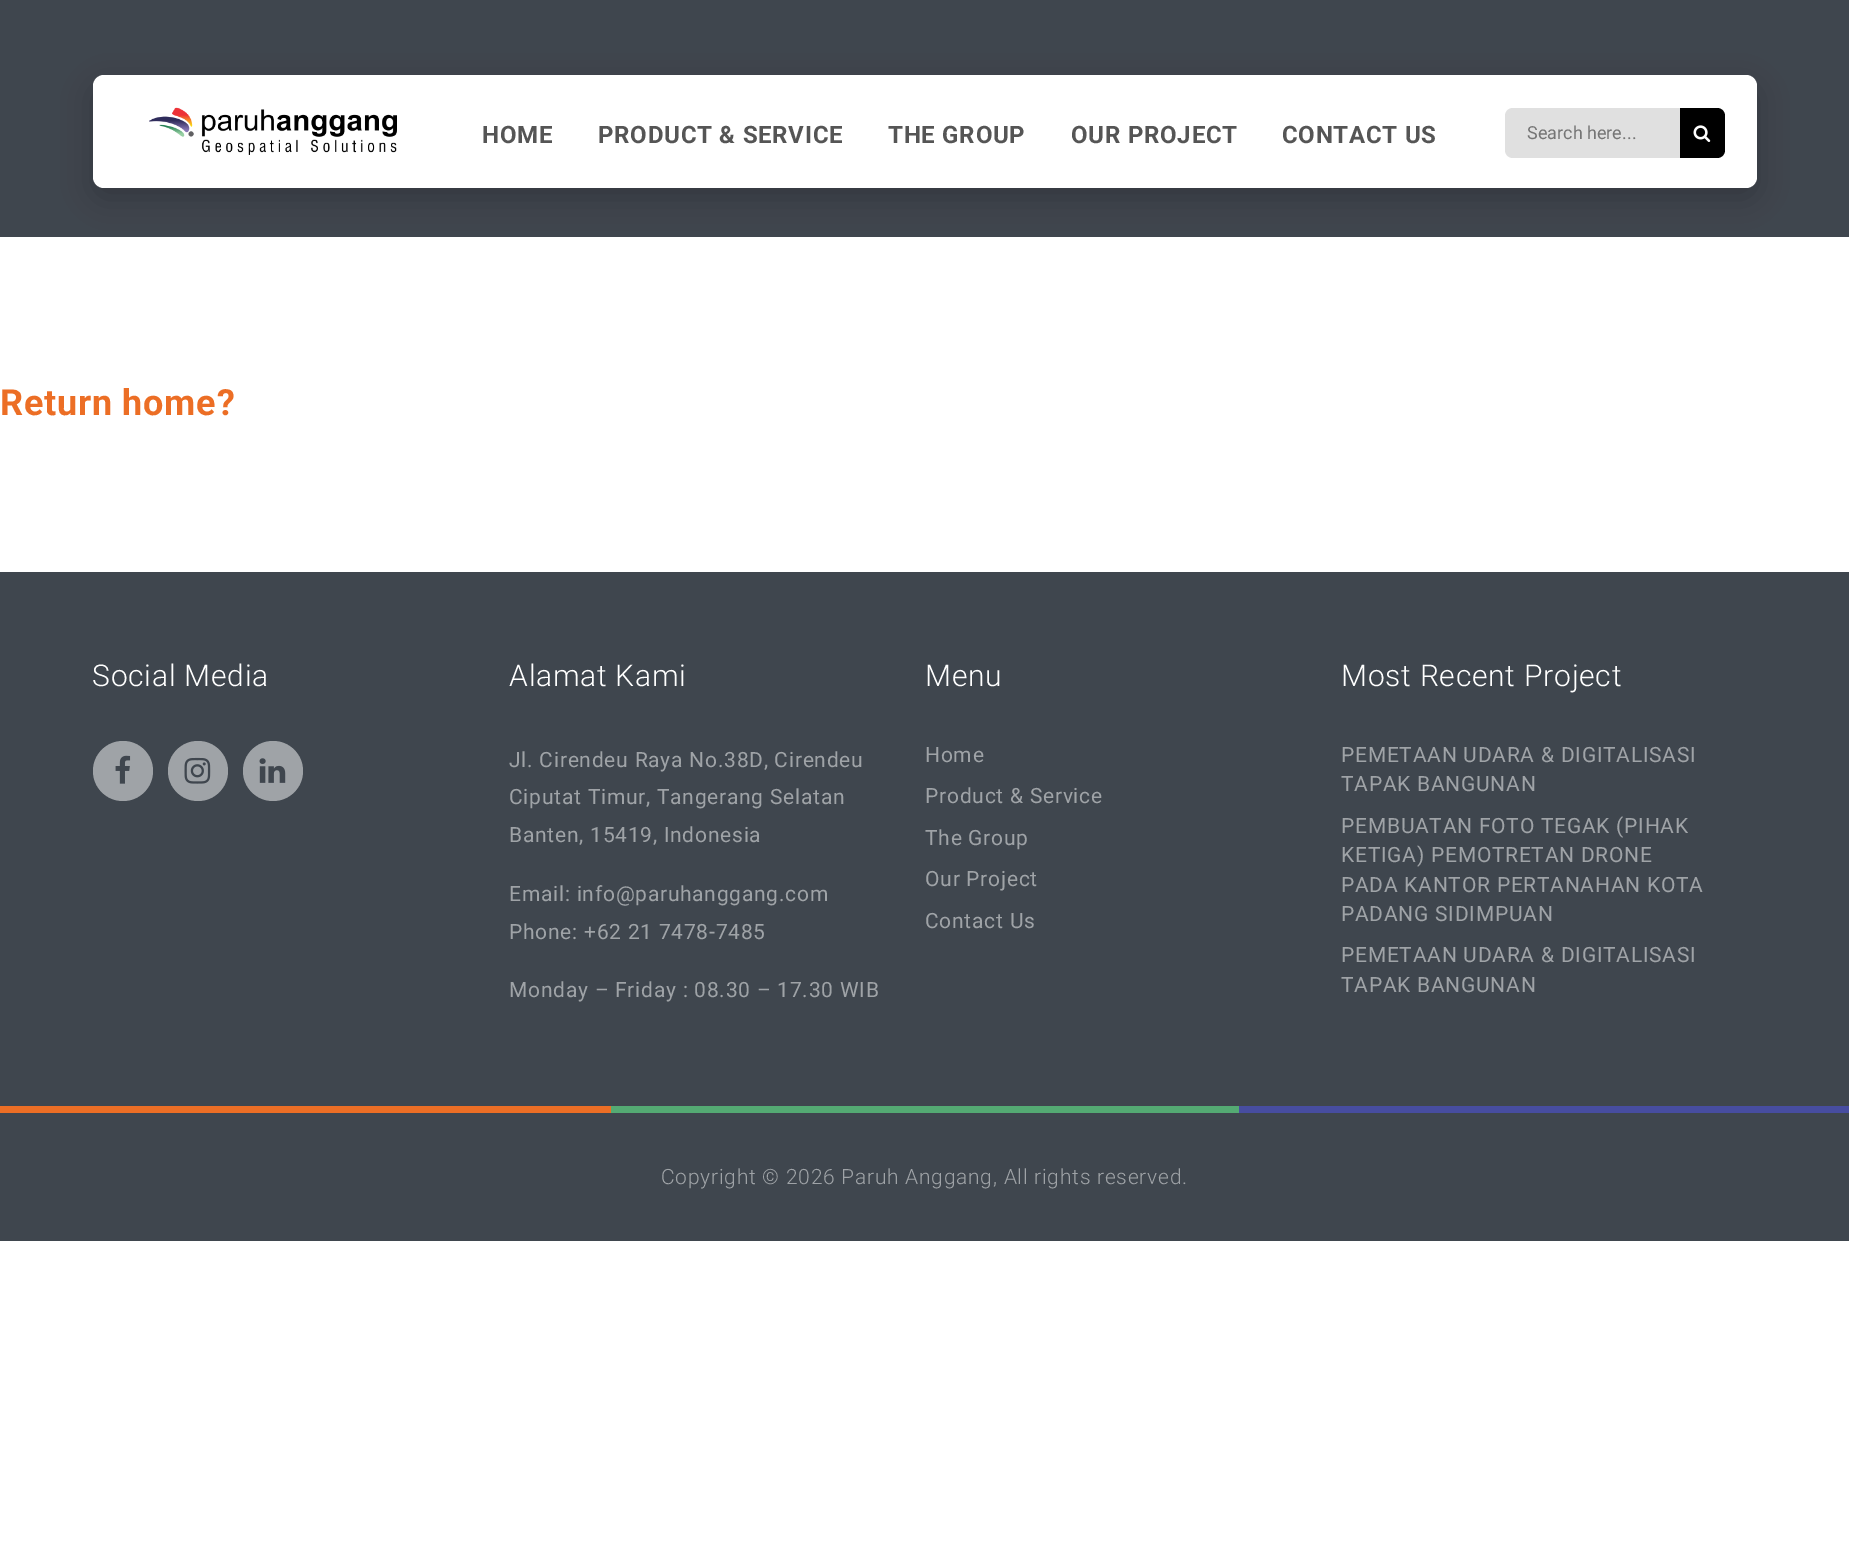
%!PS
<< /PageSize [1849 1564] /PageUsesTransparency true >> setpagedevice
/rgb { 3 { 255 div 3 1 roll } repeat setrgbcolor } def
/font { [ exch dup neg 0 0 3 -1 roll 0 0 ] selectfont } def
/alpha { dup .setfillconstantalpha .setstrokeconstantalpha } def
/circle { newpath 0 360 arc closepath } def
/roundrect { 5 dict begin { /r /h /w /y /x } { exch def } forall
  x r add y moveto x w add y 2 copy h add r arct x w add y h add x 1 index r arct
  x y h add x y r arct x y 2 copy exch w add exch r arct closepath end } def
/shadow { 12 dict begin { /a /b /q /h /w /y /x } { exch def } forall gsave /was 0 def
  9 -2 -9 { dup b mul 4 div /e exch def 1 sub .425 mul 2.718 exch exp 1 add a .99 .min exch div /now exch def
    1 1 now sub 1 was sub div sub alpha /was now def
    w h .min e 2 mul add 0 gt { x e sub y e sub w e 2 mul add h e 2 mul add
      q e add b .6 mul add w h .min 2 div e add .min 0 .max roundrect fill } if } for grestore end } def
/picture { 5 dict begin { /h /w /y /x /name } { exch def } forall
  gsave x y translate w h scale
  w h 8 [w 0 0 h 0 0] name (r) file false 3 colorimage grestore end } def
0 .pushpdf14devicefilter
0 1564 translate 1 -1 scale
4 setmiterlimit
255 255 255 rgb
0 0 1849 1564 rectfill
63 70 78 rgb
0 0 1849 237 rectfill
0 0 0 rgb
93 86 1664 112 11 15 0.2 shadow
255 255 255 rgb
93 75 1664 113 11 roundrect fill
(img/1.rgb) 149 107 248 48 picture
224 224 224 rgb
1513 108 moveto 1680 108 lineto 1680 158 lineto 1513 158 lineto 1508.5 158 1505 154.5 1505 150 curveto 1505 116 lineto 1505 111.5 1508.5 108 1513 108 curveto closepath fill
0 0 0 rgb
1680 108 moveto 1717 108 lineto 1721.5 108 1725 111.5 1725 116 curveto 1725 150 lineto 1725 154.5 1721.5 158 1717 158 curveto 1680 158 lineto closepath fill
(img/2.rgb) 1693 125 18 17 picture
63 70 78 rgb
0 572 1849 669 rectfill
159 163 167 rgb
123 771 30 circle fill
(img/3.rgb) 115 755 16 29 picture
198 771 30 circle fill
(img/4.rgb) 184 757 27 27 picture
273 771 30 circle fill
(img/5.rgb) 259 758 27 25 picture
[
  [0 1106 611 7 236 110 37]
  [611 1106 628 7 84 170 115]
  [1239 1106 610 7 71 77 160]
] { aload pop rgb rectfill } forall
/Roboto-Bold 24 font
85 85 85 rgb
482 143 moveto 0.75 0 (HOME) ashow
598 143 moveto 0.75 0 (PRODUCT & SERVICE) ashow
888 143 moveto 0.75 0 (THE GROUP) ashow
1071 143 moveto 0.75 0 (OUR PROJECT) ashow
1282 143 moveto 0.75 0 (CONTACT US) ashow
/Roboto-Regular 18 font
117 117 117 rgb
1527 139 moveto (Search here...) show
/Roboto-Bold 36 font
236 110 37 rgb
0 415 moveto 0.75 0 (Return home?) ashow
/Roboto-Light 30 font
255 255 255 rgb
92 686 moveto 0.75 0 (Social Media) ashow
509 686 moveto 0.75 0 (Alamat Kami) ashow
/Roboto-Regular 21 font
159 163 167 rgb
509 767 moveto 0.75 0 (Jl. Cirendeu Raya No.38D, Cirendeu) ashow
509 804 moveto 0.75 0 (Ciputat Timur, Tangerang Selatan) ashow
509 842 moveto 0.75 0 (Banten, 15419, Indonesia) ashow
509 901 moveto 0.75 0 (Email: info@paruhanggang.com) ashow
509 939 moveto 0.75 0 (Phone: +62 21 7478-7485) ashow
509 997 moveto 0.75 0 (Monday – Friday : 08.30 – 17.30 WIB) ashow
/Roboto-Light 30 font
255 255 255 rgb
925 686 moveto 0.75 0 (Menu) ashow
/Roboto-Regular 21 font
159 163 167 rgb
925 762 moveto 0.75 0 (Home) ashow
925 803 moveto 0.75 0 (Product & Service) ashow
925 845 moveto 0.75 0 (The Group) ashow
925 886 moveto 0.75 0 (Our Project) ashow
925 928 moveto 0.75 0 (Contact Us) ashow
/Roboto-Light 30 font
255 255 255 rgb
1341 686 moveto 0.75 0 (Most Recent Project) ashow
/Roboto-Regular 21 font
159 163 167 rgb
1341 762 moveto 0.75 0 (PEMETAAN UDARA & DIGITALISASI) ashow
1341 791 moveto 0.75 0 (TAPAK BANGUNAN) ashow
1341 833 moveto 0.75 0 (PEMBUATAN FOTO TEGAK \(PIHAK) ashow
1341 862 moveto 0.75 0 (KETIGA\) PEMOTRETAN DRONE) ashow
1341 892 moveto 0.75 0 (PADA KANTOR PERTANAHAN KOTA) ashow
1341 921 moveto 0.75 0 (PADANG SIDIMPUAN) ashow
1341 962 moveto 0.75 0 (PEMETAAN UDARA & DIGITALISASI) ashow
1341 992 moveto 0.75 0 (TAPAK BANGUNAN) ashow
/Roboto-Light 21 font
661 1184 moveto 0.75 0 (Copyright © 2026 Paruh Anggang, All rights reserved.) ashow
.poppdf14devicefilter showpage
